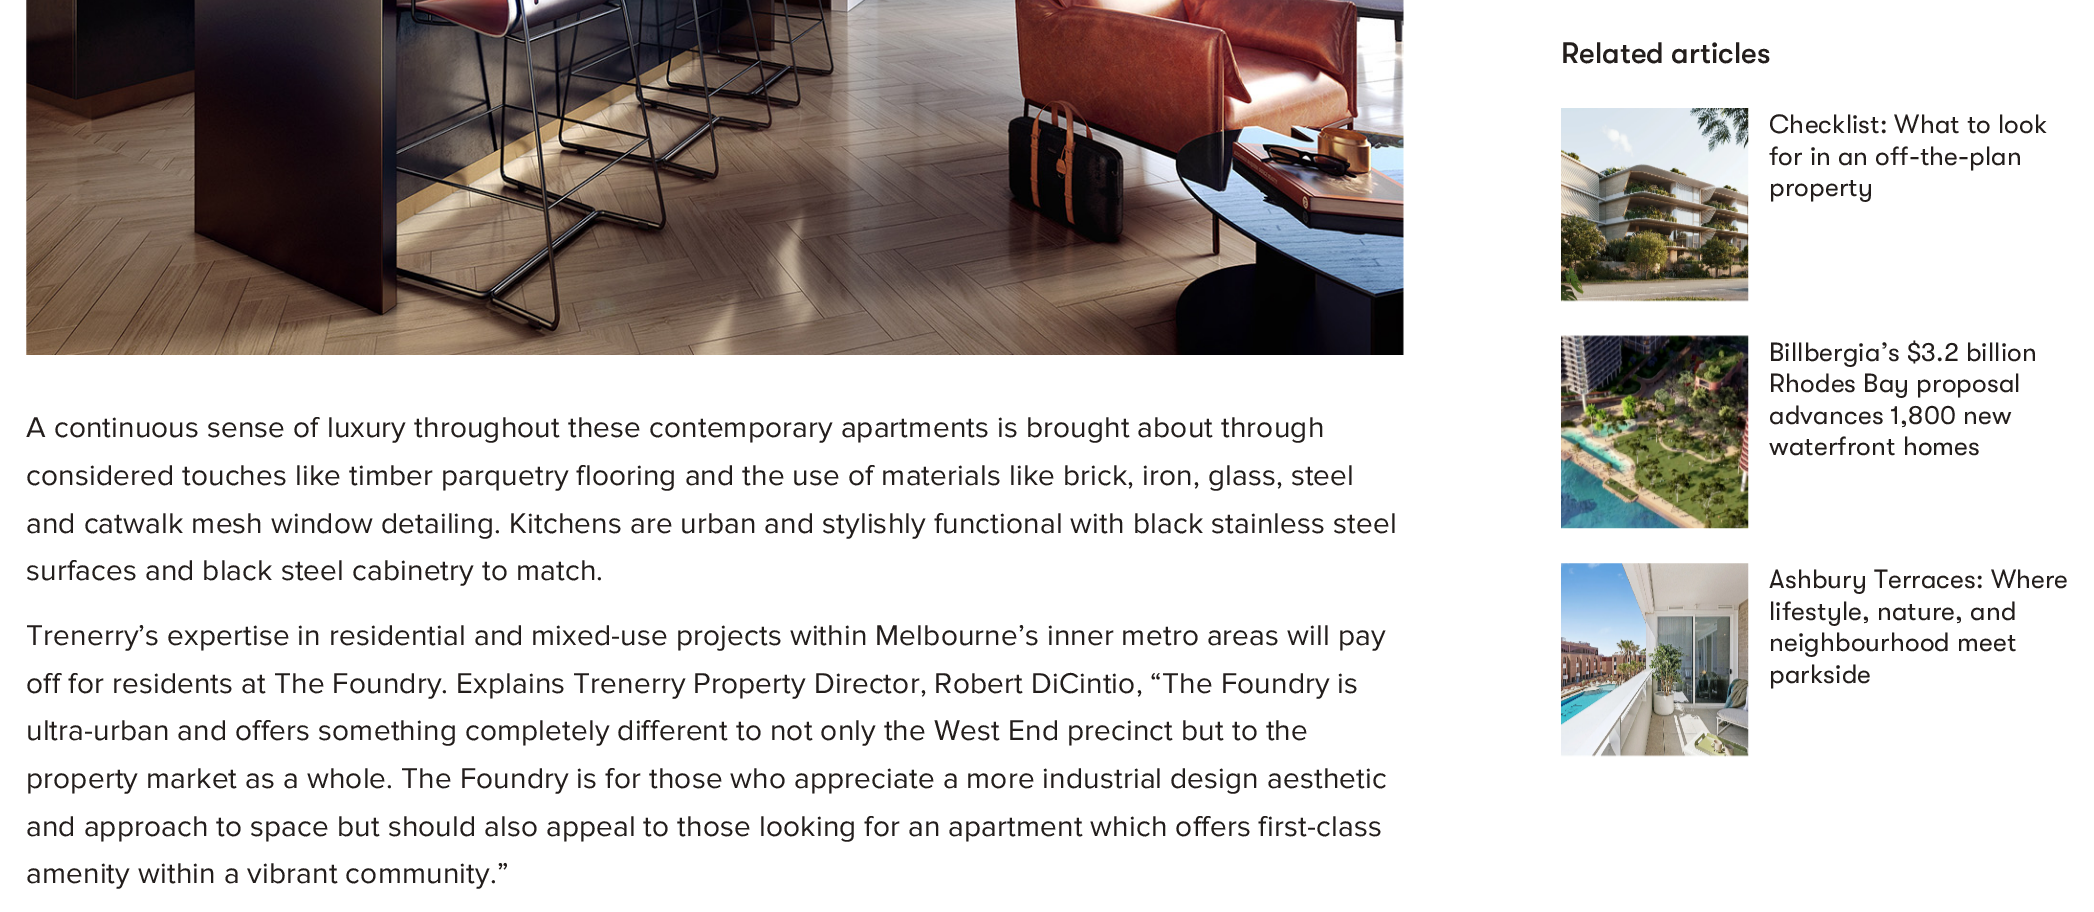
%!PS
<< /PageSize [2094 912] >> setpagedevice
/rgb { 3 { 255 div 3 1 roll } repeat setrgbcolor } def
/font { [ exch dup neg 0 0 3 -1 roll 0 0 ] selectfont } def
/picture { 5 dict begin { /h /w /y /x /name } { exch def } forall
  gsave x y translate w h scale
  w h 8 [w 0 0 h 0 0] name (r) file false 3 colorimage grestore end } def
0 912 translate 1 -1 scale
4 setmiterlimit
255 255 255 rgb
0 0 2094 912 rectfill
(img/1.rgb) 26 0 1378 355 picture
(img/2.rgb) 1561 108 188 194 picture
(img/3.rgb) 1561 335 188 194 picture
(img/4.rgb) 1561 563 188 194 picture
/ProximaNova-Regular 29.75 font
35 30 28 rgb
26 437 moveto 0.18 0 (A continuous sense of luxury throughout these contemporary apartments is brought about through) ashow
26 485 moveto 0.18 0 (considered touches like timber parquetry flooring and the use of materials like brick, iron, glass, steel) ashow
26 533 moveto 0.18 0 (and catwalk mesh window detailing. Kitchens are urban and stylishly functional with black stainless steel) ashow
26 580 moveto 0.18 0 (surfaces and black steel cabinetry to match.) ashow
26 645 moveto 0.18 0 (Trenerry’s expertise in residential and mixed-use projects within Melbourne’s inner metro areas will pay) ashow
26 693 moveto 0.18 0 (off for residents at The Foundry. Explains Trenerry Property Director, Robert DiCintio, “The Foundry is) ashow
26 740 moveto 0.18 0 (ultra-urban and offers something completely different to not only the West End precinct but to the) ashow
26 788 moveto 0.18 0 (property market as a whole. The Foundry is for those who appreciate a more industrial design aesthetic) ashow
26 836 moveto 0.18 0 (and approach to space but should also appeal to those looking for an apartment which offers first-class) ashow
26 883 moveto 0.18 0 (amenity within a vibrant community.”) ashow
/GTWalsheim-Medium 29.75 font
1561 63 moveto (Related articles) show
/GTWalsheim-Regular 26.25 font
1769 133 moveto 0.18 0 (Checklist: What to look) ashow
1769 165 moveto 0.18 0 (for in an off-the-plan) ashow
1769 196 moveto 0.18 0 (property) ashow
1769 361 moveto 0.18 0 (Billbergia’s $3.2 billion) ashow
1769 392 moveto 0.18 0 (Rhodes Bay proposal) ashow
1769 424 moveto 0.18 0 (advances 1,800 new) ashow
1769 455 moveto 0.18 0 (waterfront homes) ashow
1769 588 moveto 0.18 0 (Ashbury Terraces: Where) ashow
1769 620 moveto 0.18 0 (lifestyle, nature, and) ashow
1769 651 moveto 0.18 0 (neighbourhood meet) ashow
1769 683 moveto 0.18 0 (parkside) ashow
showpage
